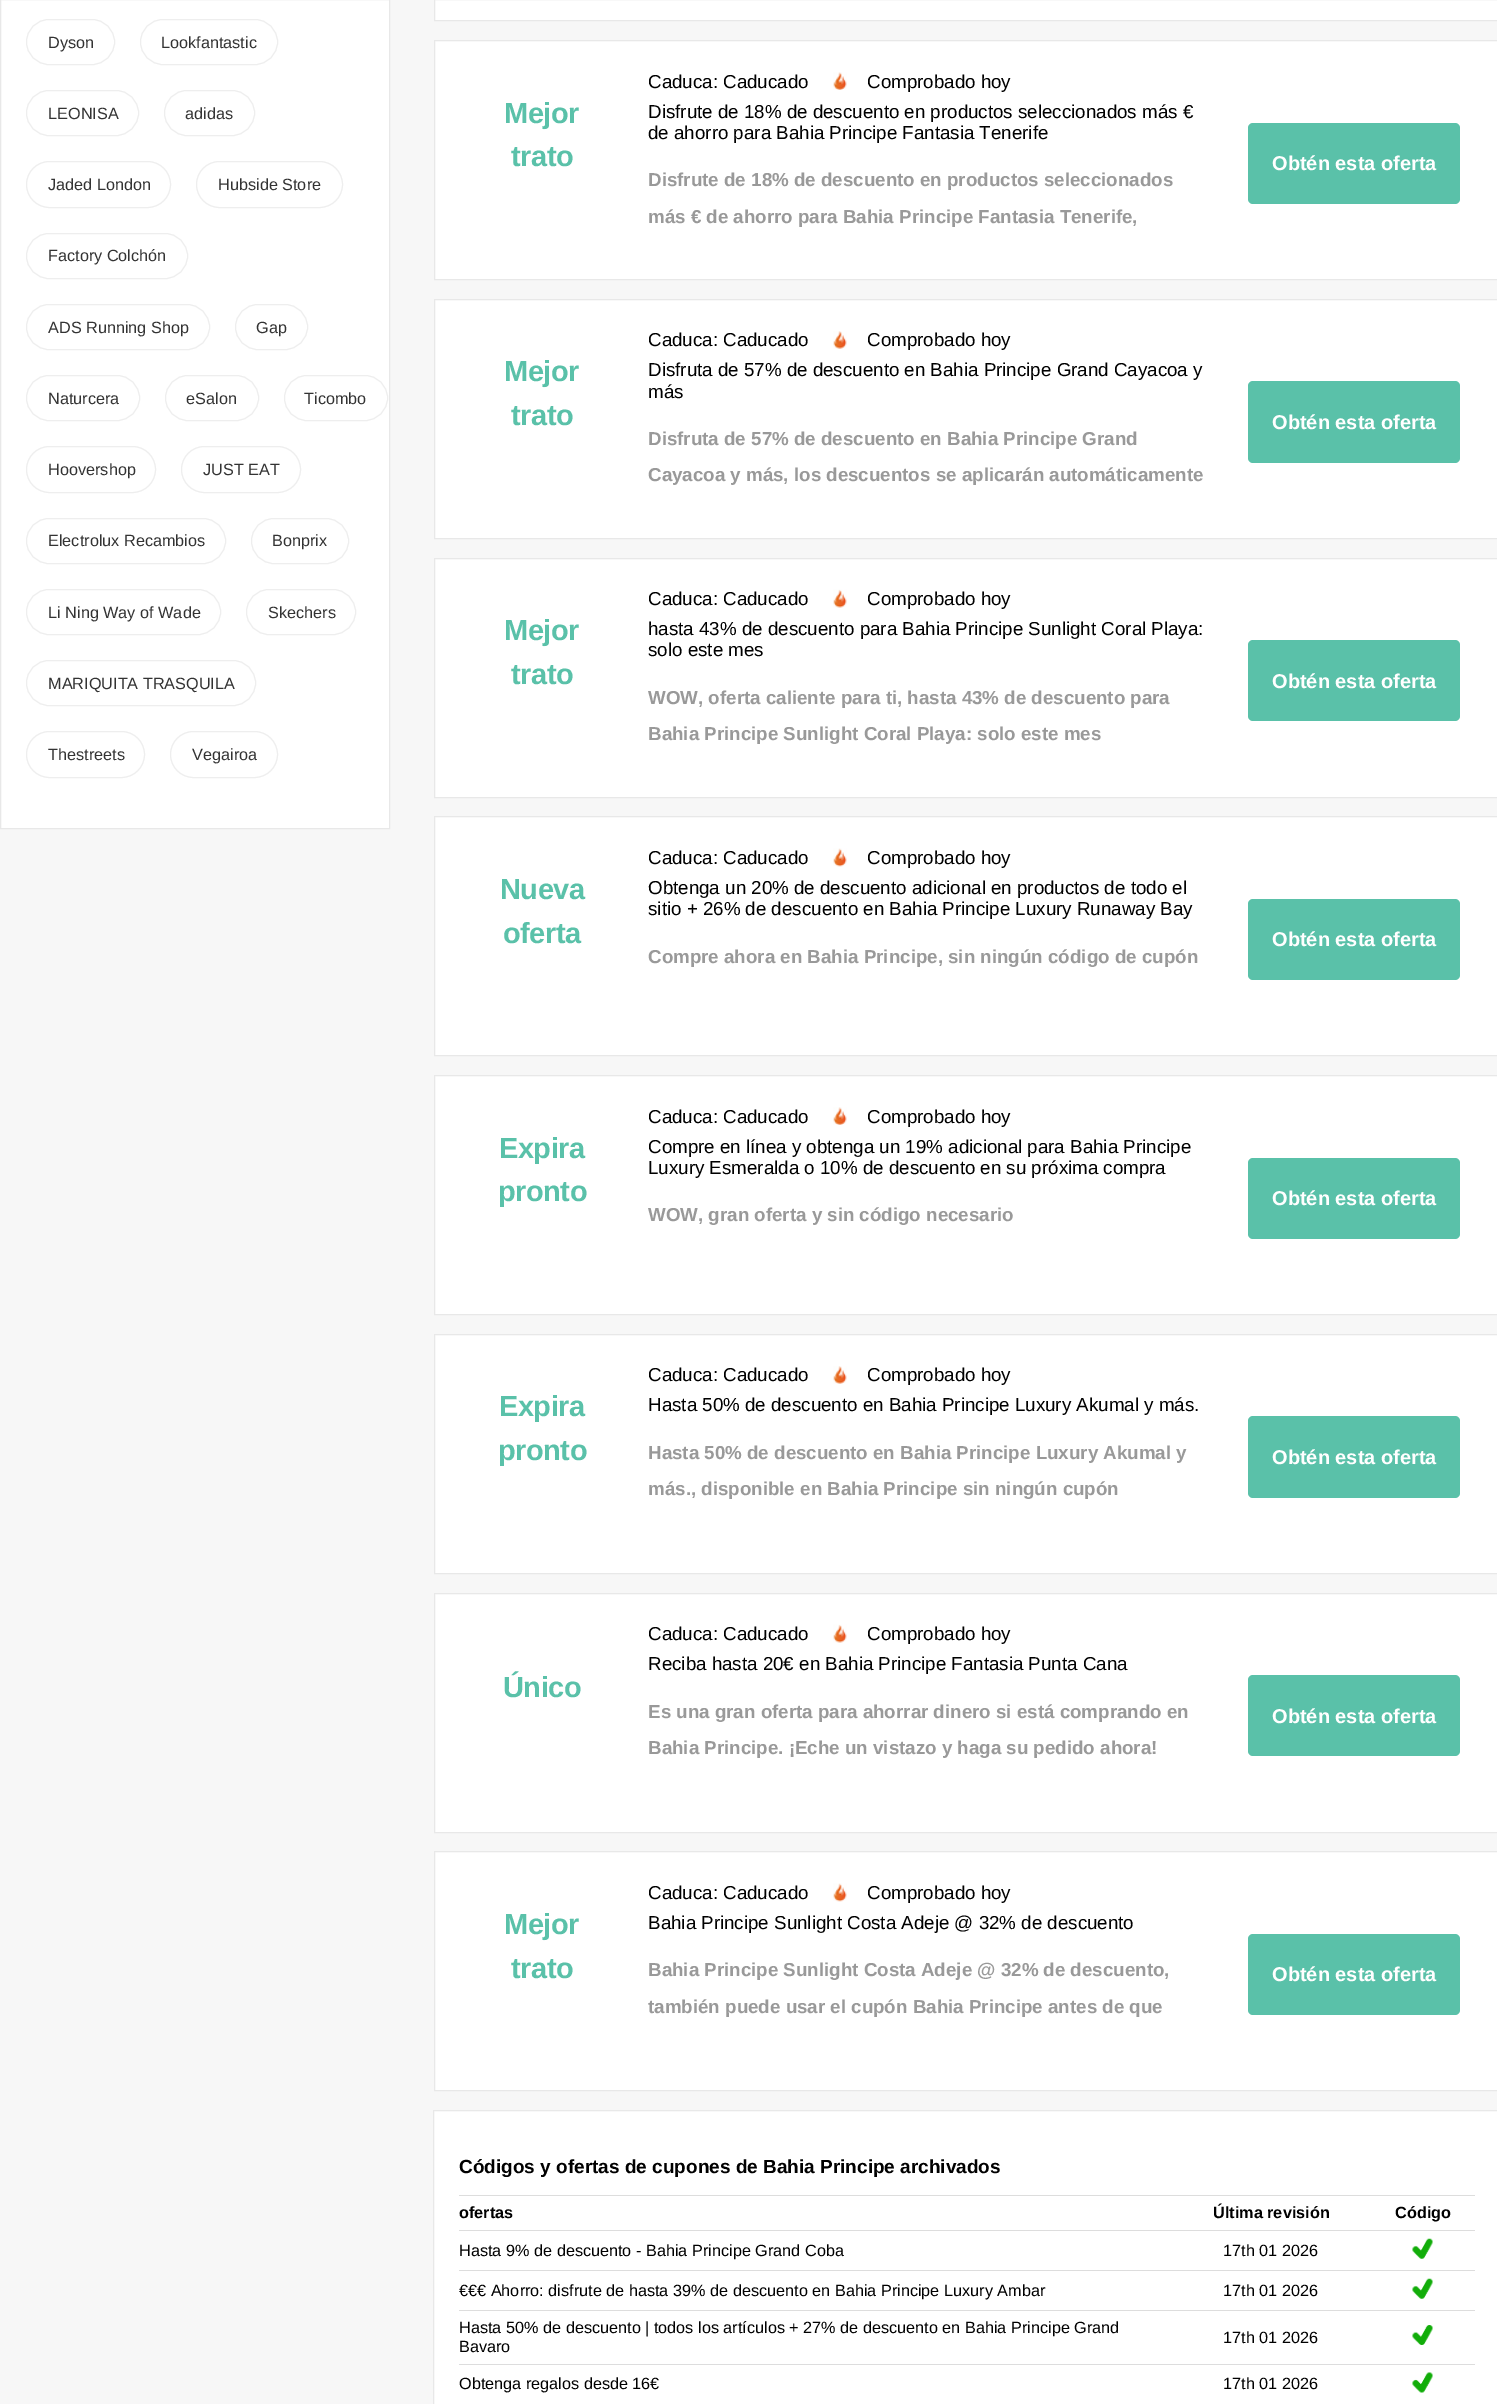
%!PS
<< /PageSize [1497 2404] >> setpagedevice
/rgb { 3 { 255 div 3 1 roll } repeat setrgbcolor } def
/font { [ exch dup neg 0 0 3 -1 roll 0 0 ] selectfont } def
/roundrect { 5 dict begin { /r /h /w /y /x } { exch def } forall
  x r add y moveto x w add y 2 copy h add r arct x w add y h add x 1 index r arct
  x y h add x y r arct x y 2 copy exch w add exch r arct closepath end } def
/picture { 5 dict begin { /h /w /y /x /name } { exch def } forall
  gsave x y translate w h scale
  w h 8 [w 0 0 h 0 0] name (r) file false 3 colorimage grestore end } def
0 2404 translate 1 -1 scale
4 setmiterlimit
247 247 247 rgb
0 0 1497 2404 rectfill
255 255 255 rgb
0.5 -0.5 moveto 389.5 -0.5 lineto 389.5 828.5 lineto 0.5 828.5 lineto closepath gsave fill grestore
232 232 232 rgb
stroke
238 238 238 rgb
26.5 19.5 88 45 22.5 roundrect stroke
140.5 19.5 137 45 22.5 roundrect stroke
26.5 90.5 112 45 22.5 roundrect stroke
164.5 90.5 90 45 22.5 roundrect stroke
26.5 161.5 144 46 23 roundrect stroke
196.5 161.5 146 46 23 roundrect stroke
26.5 233.5 161 45 22.5 roundrect stroke
26.5 304.5 183 45 22.5 roundrect stroke
235.5 304.5 72 45 22.5 roundrect stroke
26.5 375.5 113 45 22.5 roundrect stroke
165.5 375.5 93 45 22.5 roundrect stroke
284.5 375.5 103 45 22.5 roundrect stroke
26.5 446.5 129 46 23 roundrect stroke
181.5 446.5 119 46 23 roundrect stroke
26.5 518.5 199 45 22.5 roundrect stroke
251.5 518.5 97 45 22.5 roundrect stroke
26.5 589.5 194 45 22.5 roundrect stroke
246.5 589.5 109 45 22.5 roundrect stroke
26.5 660.5 229 45 22.5 roundrect stroke
26.5 731.5 118 46 23 roundrect stroke
170.5 731.5 107 46 23 roundrect stroke
255 255 255 rgb
434.5 -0.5 moveto 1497.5 -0.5 lineto 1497.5 20.5 lineto 434.5 20.5 lineto closepath gsave fill grestore
232 232 232 rgb
stroke
255 255 255 rgb
434.5 40.5 moveto 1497.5 40.5 lineto 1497.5 279.5 lineto 434.5 279.5 lineto closepath gsave fill grestore
232 232 232 rgb
stroke
(img/1.rgb) 833 72 14 18 picture
90 193 169 rgb
1248 123 212 81 5 roundrect fill
255 255 255 rgb
434.5 299.5 moveto 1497.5 299.5 lineto 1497.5 538.5 lineto 434.5 538.5 lineto closepath gsave fill grestore
232 232 232 rgb
stroke
(img/2.rgb) 833 331 14 18 picture
90 193 169 rgb
1248 381 212 82 5 roundrect fill
255 255 255 rgb
434.5 558.5 moveto 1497.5 558.5 lineto 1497.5 797.5 lineto 434.5 797.5 lineto closepath gsave fill grestore
232 232 232 rgb
stroke
(img/3.rgb) 833 589 14 19 picture
90 193 169 rgb
1248 640 212 81 5 roundrect fill
255 255 255 rgb
434.5 816.5 moveto 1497.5 816.5 lineto 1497.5 1055.5 lineto 434.5 1055.5 lineto closepath gsave fill grestore
232 232 232 rgb
stroke
(img/4.rgb) 833 848 14 19 picture
90 193 169 rgb
1248 899 212 81 5 roundrect fill
255 255 255 rgb
434.5 1075.5 moveto 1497.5 1075.5 lineto 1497.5 1314.5 lineto 434.5 1314.5 lineto closepath gsave fill grestore
232 232 232 rgb
stroke
(img/5.rgb) 833 1107 14 18 picture
90 193 169 rgb
1248 1158 212 81 5 roundrect fill
255 255 255 rgb
434.5 1334.5 moveto 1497.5 1334.5 lineto 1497.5 1573.5 lineto 434.5 1573.5 lineto closepath gsave fill grestore
232 232 232 rgb
stroke
(img/6.rgb) 833 1366 14 18 picture
90 193 169 rgb
1248 1416 212 82 5 roundrect fill
255 255 255 rgb
434.5 1593.5 moveto 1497.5 1593.5 lineto 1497.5 1832.5 lineto 434.5 1832.5 lineto closepath gsave fill grestore
232 232 232 rgb
stroke
(img/7.rgb) 833 1624 14 19 picture
90 193 169 rgb
1248 1675 212 81 5 roundrect fill
255 255 255 rgb
434.5 1851.5 moveto 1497.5 1851.5 lineto 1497.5 2090.5 lineto 434.5 2090.5 lineto closepath gsave fill grestore
232 232 232 rgb
stroke
(img/4.rgb) 833 1883 14 19 picture
90 193 169 rgb
1248 1934 212 81 5 roundrect fill
255 255 255 rgb
433.5 2110.5 moveto 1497.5 2110.5 lineto 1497.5 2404.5 lineto 433.5 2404.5 lineto closepath gsave fill grestore
232 232 232 rgb
stroke
221 221 221 rgb
459 2195 1016 1 rectfill
459 2230 1016 1 rectfill
(img/8.rgb) 1412 2238 21 21 picture
459 2270 1016 1 rectfill
(img/8.rgb) 1412 2278 21 21 picture
459 2310 1016 1 rectfill
(img/9.rgb) 1412 2325 21 20 picture
459 2364 1016 1 rectfill
(img/10.rgb) 1412 2372 21 21 picture
/LiberationSans-Regular 16.25 font
51 51 51 rgb
[
  [(Dyson) 48 48]
  [(Lookfantastic) 161 48]
  [(LEONISA) 48 119]
  [(adidas) 185 119]
  [(Jaded London) 48 190]
  [(Hubside Store) 218 190]
  [(Factory Colchón) 48 261]
  [(ADS Running Shop) 48 333]
  [(Gap) 256 333]
  [(Naturcera) 48 404]
  [(eSalon) 186 404]
  [(Ticombo) 304 404]
  [(Hoovershop) 48 475]
  [(JUST EAT) 203 475]
  [(Electrolux Recambios) 48 546]
  [(Bonprix) 272 546]
  [(Li Ning Way of Wade) 48 618]
  [(Skechers) 268 618]
  [(MARIQUITA TRASQUILA) 48 689]
  [(Thestreets) 48 760]
  [(Vegairoa) 192 760]
] { aload pop moveto show } forall
/LiberationSans-Bold 29 font
90 193 169 rgb
504 123 moveto -0.5 0 (Mejor) ashow
511 166 moveto -0.5 0 (trato) ashow
/LiberationSans-Regular 18.75 font
0 0 0 rgb
[
  [(Caduca: Caducado) 648 88]
  [(Comprobado hoy) 867 88]
  [(Disfrute de 18% de descuento en productos seleccionados más €) 648 118]
  [(de ahorro para Bahia Principe Fantasia Tenerife) 648 139]
] { aload pop moveto show } forall
/LiberationSans-Bold 18.75 font
153 153 153 rgb
648 186 moveto (Disfrute de 18% de descuento en productos seleccionados) show
648 223 moveto (más € de ahorro para Bahia Principe Fantasia Tenerife,) show
/LiberationSans-Bold 20 font
255 255 255 rgb
1272 170 moveto (Obtén esta oferta) show
/LiberationSans-Bold 29 font
90 193 169 rgb
504 381 moveto -0.5 0 (Mejor) ashow
511 425 moveto -0.5 0 (trato) ashow
/LiberationSans-Regular 18.75 font
0 0 0 rgb
[
  [(Caduca: Caducado) 648 346]
  [(Comprobado hoy) 867 346]
  [(Disfruta de 57% de descuento en Bahia Principe Grand Cayacoa y) 648 376]
  [(más) 648 398]
] { aload pop moveto show } forall
/LiberationSans-Bold 18.75 font
153 153 153 rgb
648 445 moveto (Disfruta de 57% de descuento en Bahia Principe Grand) show
648 481 moveto (Cayacoa y más, los descuentos se aplicarán automáticamente) show
/LiberationSans-Bold 20 font
255 255 255 rgb
1272 429 moveto (Obtén esta oferta) show
/LiberationSans-Bold 29 font
90 193 169 rgb
504 640 moveto -0.5 0 (Mejor) ashow
511 684 moveto -0.5 0 (trato) ashow
/LiberationSans-Regular 18.75 font
0 0 0 rgb
[
  [(Caduca: Caducado) 648 605]
  [(Comprobado hoy) 867 605]
  [(hasta 43% de descuento para Bahia Principe Sunlight Coral Playa:) 648 635]
  [(solo este mes) 648 656]
] { aload pop moveto show } forall
/LiberationSans-Bold 18.75 font
153 153 153 rgb
648 704 moveto (WOW, oferta caliente para ti, hasta 43% de descuento para) show
648 740 moveto (Bahia Principe Sunlight Coral Playa: solo este mes) show
/LiberationSans-Bold 20 font
255 255 255 rgb
1272 688 moveto (Obtén esta oferta) show
/LiberationSans-Bold 29 font
90 193 169 rgb
500 899 moveto -0.5 0 (Nueva) ashow
503 943 moveto -0.5 0 (oferta) ashow
/LiberationSans-Regular 18.75 font
0 0 0 rgb
[
  [(Caduca: Caducado) 648 864]
  [(Comprobado hoy) 867 864]
  [(Obtenga un 20% de descuento adicional en productos de todo el) 648 894]
  [(sitio + 26% de descuento en Bahia Principe Luxury Runaway Bay) 648 915]
] { aload pop moveto show } forall
/LiberationSans-Bold 18.75 font
153 153 153 rgb
648 963 moveto (Compre ahora en Bahia Principe, sin ningún código de cupón) show
/LiberationSans-Bold 20 font
255 255 255 rgb
1272 946 moveto (Obtén esta oferta) show
/LiberationSans-Bold 29 font
90 193 169 rgb
499 1158 moveto -0.5 0 (Expira) ashow
498 1201 moveto -0.5 0 (pronto) ashow
/LiberationSans-Regular 18.75 font
0 0 0 rgb
[
  [(Caduca: Caducado) 648 1123]
  [(Comprobado hoy) 867 1123]
  [(Compre en línea y obtenga un 19% adicional para Bahia Principe) 648 1153]
  [(Luxury Esmeralda o 10% de descuento en su próxima compra) 648 1174]
] { aload pop moveto show } forall
/LiberationSans-Bold 18.75 font
153 153 153 rgb
648 1221 moveto (WOW, gran oferta y sin código necesario) show
/LiberationSans-Bold 20 font
255 255 255 rgb
1272 1205 moveto (Obtén esta oferta) show
/LiberationSans-Bold 29 font
90 193 169 rgb
499 1416 moveto -0.5 0 (Expira) ashow
498 1460 moveto -0.5 0 (pronto) ashow
/LiberationSans-Regular 18.75 font
0 0 0 rgb
[
  [(Caduca: Caducado) 648 1381]
  [(Comprobado hoy) 867 1381]
  [(Hasta 50% de descuento en Bahia Principe Luxury Akumal y más.) 648 1411]
] { aload pop moveto show } forall
/LiberationSans-Bold 18.75 font
153 153 153 rgb
648 1459 moveto (Hasta 50% de descuento en Bahia Principe Luxury Akumal y) show
648 1495 moveto (más., disponible en Bahia Principe sin ningún cupón) show
/LiberationSans-Bold 20 font
255 255 255 rgb
1272 1464 moveto (Obtén esta oferta) show
/LiberationSans-Bold 29 font
90 193 169 rgb
503 1697 moveto -0.5 0 (Único) ashow
/LiberationSans-Regular 18.75 font
0 0 0 rgb
[
  [(Caduca: Caducado) 648 1640]
  [(Comprobado hoy) 867 1640]
  [(Reciba hasta 20€ en Bahia Principe Fantasia Punta Cana) 648 1670]
] { aload pop moveto show } forall
/LiberationSans-Bold 18.75 font
153 153 153 rgb
648 1718 moveto (Es una gran oferta para ahorrar dinero si está comprando en) show
648 1754 moveto (Bahia Principe. ¡Eche un vistazo y haga su pedido ahora!) show
/LiberationSans-Bold 20 font
255 255 255 rgb
1272 1723 moveto (Obtén esta oferta) show
/LiberationSans-Bold 29 font
90 193 169 rgb
504 1934 moveto -0.5 0 (Mejor) ashow
511 1978 moveto -0.5 0 (trato) ashow
/LiberationSans-Regular 18.75 font
0 0 0 rgb
[
  [(Caduca: Caducado) 648 1899]
  [(Comprobado hoy) 867 1899]
  [(Bahia Principe Sunlight Costa Adeje @ 32% de descuento) 648 1929]
] { aload pop moveto show } forall
/LiberationSans-Bold 18.75 font
153 153 153 rgb
648 1976 moveto (Bahia Principe Sunlight Costa Adeje @ 32% de descuento,) show
648 2013 moveto (también puede usar el cupón Bahia Principe antes de que) show
/LiberationSans-Bold 20 font
255 255 255 rgb
1272 1981 moveto (Obtén esta oferta) show
/LiberationSans-Bold 19 font
0 0 0 rgb
459 2173 moveto (Códigos y ofertas de cupones de Bahia Principe archivados) show
/LiberationSans-Bold 16.25 font
[
  [(ofertas) 459 2218]
  [(Última revisión) 1213 2218]
  [(Código) 1395 2218]
] { aload pop moveto show } forall
/LiberationSans-Regular 16.25 font
[
  [(Hasta 9% de descuento - Bahia Principe Grand Coba) 459 2256]
  [(17th 01 2026) 1223 2256]
  [(€€€ Ahorro: disfrute de hasta 39% de descuento en Bahia Principe Luxury Ambar) 459 2296]
  [(17th 01 2026) 1223 2296]
  [(Hasta 50% de descuento | todos los artículos + 27% de descuento en Bahia Principe Grand) 459 2333]
  [(Bavaro) 459 2352]
  [(17th 01 2026) 1223 2343]
  [(Obtenga regalos desde 16€) 459 2389]
  [(17th 01 2026) 1223 2389]
] { aload pop moveto show } forall
showpage
